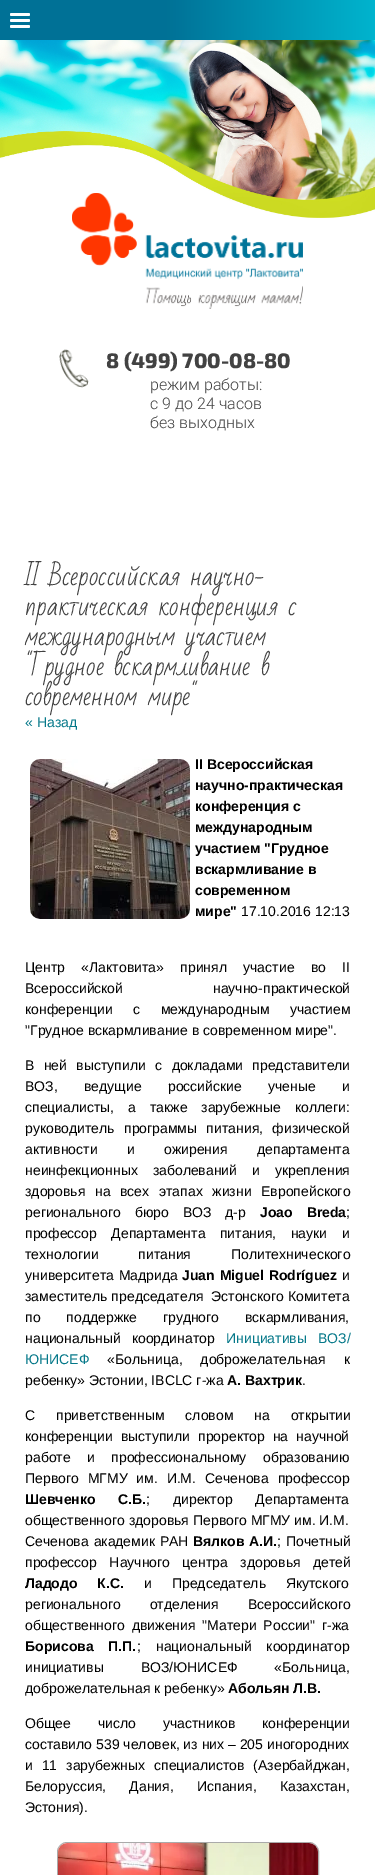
%!PS
<< /PageSize [375 1875] >> setpagedevice
/rgb { 3 { 255 div 3 1 roll } repeat setrgbcolor } def
/font { [ exch dup neg 0 0 3 -1 roll 0 0 ] selectfont } def
/roundrect { 5 dict begin { /r /h /w /y /x } { exch def } forall
  x r add y moveto x w add y 2 copy h add r arct x w add y h add x 1 index r arct
  x y h add x y r arct x y 2 copy exch w add exch r arct closepath end } def
/picture { 5 dict begin { /h /w /y /x /name } { exch def } forall
  gsave x y translate w h scale
  w h 8 [w 0 0 h 0 0] name (r) file false 3 colorimage grestore end } def
0 1875 translate 1 -1 scale
4 setmiterlimit
255 255 255 rgb
0 0 375 1875 rectfill
(img/1.rgb) 0 40 375 178 picture
gsave 0 0 moveto 375 0 lineto 375 40 lineto 0 40 lineto closepath clip newpath
<< /ShadingType 2 /ColorSpace /DeviceRGB /Coords [0 20 375 20] /Extend [true true] /Function << /FunctionType 3 /Domain [0 1] /Functions [<< /FunctionType 2 /Domain [0 1] /C0 [0 0.443 0.588] /C1 [0 0.443 0.588] /N 1 >> << /FunctionType 2 /Domain [0 1] /C0 [0 0.443 0.588] /C1 [0 0.706 0.808] /N 1 >>] /Bounds [0.44] /Encode [0 1 0 1] >> >> shfill grestore
10 13 20 3 1.5 roundrect fill
10 19 20 3 1.5 roundrect fill
10 25 20 3 1.5 roundrect fill
(img/2.rgb) 72 193 231 116 picture
(img/3.rgb) 59 349 30 39 picture
(img/4.rgb) 30 759 160 160 picture
170 170 170 rgb
57.5 1842.5 261 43 9.5 roundrect stroke
(img/5.rgb) 58 1843 260 32 picture
/Exo2-ExtraBold 21 font
66 66 66 rgb
106 368 moveto (8 \(499\) 700-08-80) show
/Roboto-Light 16 font
[
  [(режим работы:) 150 390]
  [(с 9 до 24 часов) 150 409]
  [(без выходных) 150 428]
] { aload pop moveto show } forall
/BadScript-Regular 25 font
[
  [(II Всероссийская научно-) 25 585]
  [(практическая конференция с) 25 615]
  [(международным участием) 25 645]
  [("Грудное вскармливание в) 25 675]
  [(современном мире") 25 705]
] { aload pop moveto show } forall
/LiberationSans-Regular 14 font
4 120 137 rgb
25 727 moveto (« Назад) show
/LiberationSans-Bold 14 font
0 0 0 rgb
[
  [(II Всероссийская) 195 769]
  [(научно-практическая) 195 790]
  [(конференция с) 195 811]
  [(международным) 195 832]
  [(участием "Грудное) 195 853]
  [(вскармливание в) 195 874]
  [(современном) 195 895]
  [(мире") 195 916]
] { aload pop moveto show } forall
/LiberationSans-Regular 14 font
241 916 moveto (17.10.2016 12:13) show
25 972 moveto 12.5 0 32 (Центр «Лактовита» принял участие во II) widthshow
25 993 moveto 86 0 32 (Всероссийской научно-практической) widthshow
25 1014 moveto 16.5 0 32 (конференции с международным участием) widthshow
25 1035 moveto ("Грудное вскармливание в современном мире".) show
25 1070 moveto 5.5 0 32 (В ней выступили с докладами представители) widthshow
25 1091 moveto 22.5 0 32 (ВОЗ, ведущие российские ученые и) widthshow
25 1112 moveto 10 0 32 (специалисты, а также зарубежные коллеги:) widthshow
25 1133 moveto 5.5 0 32 (руководитель программы питания, физической) widthshow
25 1154 moveto 25.5 0 32 (активности и ожирения департамента) widthshow
25 1175 moveto 11 0 32 (неинфекционных заболеваний и укрепления) widthshow
25 1196 moveto 5.75 0 32 (здоровья на всех этапах жизни Европейского) widthshow
25 1217 moveto 10 0 32 (регионального бюро ВОЗ д-р) widthshow
/LiberationSans-Bold 14 font
260 1217 moveto 10 0 32 (Joao Breda) widthshow
/LiberationSans-Regular 14 font
346 1217 moveto (;) show
25 1238 moveto 10.5 0 32 (профессор Департамента питания, науки и) widthshow
25 1259 moveto 36 0 32 (технологии питания Политехнического) widthshow
25 1280 moveto 1 0 32 (университета Мадрида) widthshow
/LiberationSans-Bold 14 font
182 1280 moveto 1 0 32 (Juan Miguel Rodríguez) widthshow
/LiberationSans-Regular 14 font
342 1280 moveto (и) show
25 1301 moveto (заместитель председателя  Эстонского Комитета) show
25 1322 moveto 22 0 32 (по поддержке грудного вскармливания,) widthshow
25 1343 moveto 7 0 32 (национальный координатор) widthshow
4 120 137 rgb
226 1343 moveto 7 0 32 (Инициативы ВОЗ/) widthshow
25 1364 moveto (ЮНИСЕФ) show
0 0 0 rgb
107 1364 moveto 14 0 32 («Больница, доброжелательная к) widthshow
25 1385 moveto (ребенку» Эстонии, IBCLC г-жа) show
/LiberationSans-Bold 14 font
227 1385 moveto (А. Вахтрик) show
/LiberationSans-Regular 14 font
302 1385 moveto (.) show
25 1420 moveto 17 0 32 (С приветственным словом на открытии) widthshow
25 1441 moveto 4 0 32 (конференции выступили проректор на научной) widthshow
25 1462 moveto 12.5 0 32 (работе и профессиональному образованию) widthshow
25 1483 moveto 5 0 32 (Первого МГМУ им. И.М. Сеченова профессор) widthshow
/LiberationSans-Bold 14 font
25 1504 moveto 19 0 32 (Шевченко С.Б.) widthshow
/LiberationSans-Regular 14 font
146 1504 moveto 19 0 32 (; директор Департамента) widthshow
25 1525 moveto (общественного здоровья Первого МГМУ им. И.М.) show
25 1546 moveto 1 0 32 (Сеченова академик РАН) widthshow
/LiberationSans-Bold 14 font
193 1546 moveto 1 0 32 (Вялков А.И.) widthshow
/LiberationSans-Regular 14 font
277 1546 moveto 1 0 32 (; Почетный) widthshow
25 1567 moveto 8.5 0 32 (профессор Научного центра здоровья детей) widthshow
/LiberationSans-Bold 14 font
25 1588 moveto 16 0 32 (Ладодо К.С.) widthshow
/LiberationSans-Regular 14 font
144 1588 moveto 16 0 32 (и Председатель Якутского) widthshow
25 1609 moveto 25 0 32 (регионального отделения Всероссийского) widthshow
25 1630 moveto 3 0 32 (общественного движения "Матери России" г-жа) widthshow
/LiberationSans-Bold 14 font
25 1651 moveto 11 0 32 (Борисова П.П.) widthshow
/LiberationSans-Regular 14 font
137 1651 moveto 11 0 32 (; национальный координатор) widthshow
25 1672 moveto 33 0 32 (инициативы ВОЗ/ЮНИСЕФ «Больница,) widthshow
25 1693 moveto (доброжелательная к ребенку») show
/LiberationSans-Bold 14 font
228 1693 moveto (Абольян Л.В.) show
/LiberationSans-Regular 14 font
25 1728 moveto 23 0 32 (Общее число участников конференции) widthshow
25 1749 moveto (составило 539 человек, из них – 205 иногородних) show
25 1770 moveto 5 0 32 (и 11 зарубежных специалистов \(Азербайджан,) widthshow
25 1791 moveto 19.5 0 32 (Белоруссия, Дания, Испания, Казахстан,) widthshow
25 1812 moveto (Эстония\).) show
showpage
